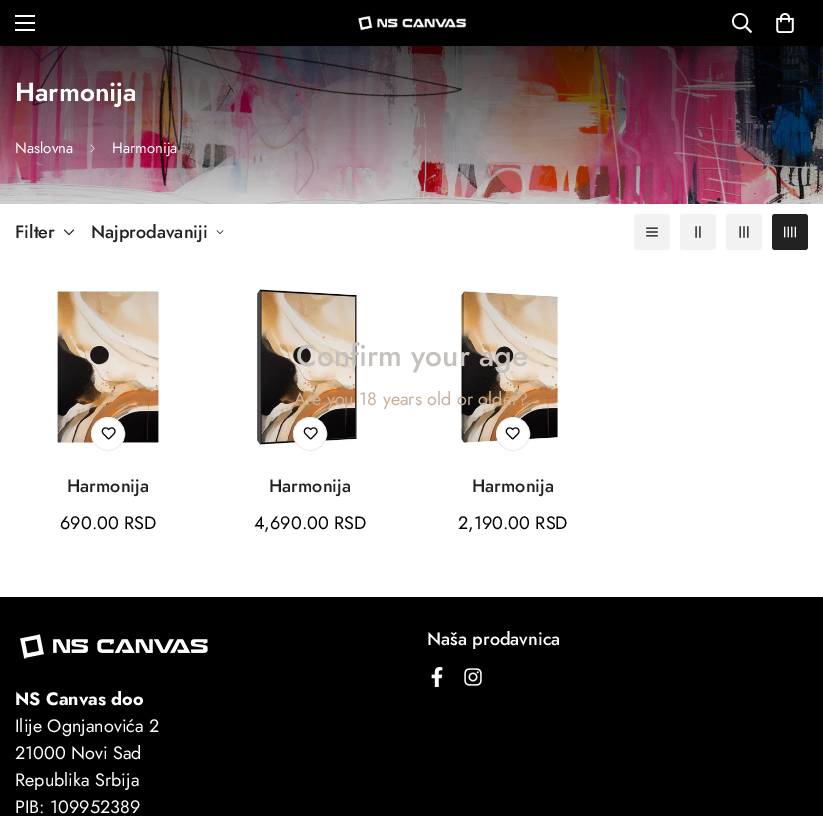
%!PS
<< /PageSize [823 816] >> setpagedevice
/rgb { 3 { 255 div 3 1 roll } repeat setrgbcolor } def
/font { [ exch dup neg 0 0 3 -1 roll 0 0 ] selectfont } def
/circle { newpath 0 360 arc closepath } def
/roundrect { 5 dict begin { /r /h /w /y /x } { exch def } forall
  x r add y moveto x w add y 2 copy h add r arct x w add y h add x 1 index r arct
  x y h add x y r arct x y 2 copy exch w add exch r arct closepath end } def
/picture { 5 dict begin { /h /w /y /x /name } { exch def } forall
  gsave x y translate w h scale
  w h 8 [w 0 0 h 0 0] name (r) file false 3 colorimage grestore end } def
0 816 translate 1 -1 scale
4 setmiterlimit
255 255 255 rgb
0 0 823 816 rectfill
[
  [0 0 823 46 0 0 0]
  [15 22 20 2 255 255 255]
  [15 15 20 2 255 255 255]
  [15 29 20 2 255 255 255]
] { aload pop rgb rectfill } forall
(img/1.rgb) 358 15 109 16 picture
(img/2.rgb) 732 13 20 20 picture
(img/3.rgb) 776 13 18 20 picture
(img/4.rgb) 0 46 823 158 picture
(img/5.rgb) 90 144 5 9 picture
(img/6.rgb) 63 229 12 7 picture
(img/7.rgb) 216 230 8 5 picture
242 242 242 rgb
634 214 36 36 3 roundrect fill
(img/8.rgb) 646 227 12 10 picture
680 214 36 36 3 roundrect fill
(img/9.rgb) 695 226 6 12 picture
726 214 36 36 3 roundrect fill
(img/10.rgb) 739 226 10 12 picture
34 34 34 rgb
772 214 36 36 3 roundrect fill
(img/11.rgb) 784 226 12 12 picture
(img/12.rgb) 56 291 104 153 picture
255 255 255 rgb
108 434 16.5 circle gsave fill grestore
238 238 238 rgb
stroke
(img/13.rgb) 101 427 15 13 picture
(img/14.rgb) 256 289 101 156 picture
255 255 255 rgb
310 434 16.5 circle gsave fill grestore
238 238 238 rgb
stroke
(img/13.rgb) 303 427 15 13 picture
(img/15.rgb) 460 291 98 152 picture
255 255 255 rgb
513 434 16.5 circle gsave fill grestore
238 238 238 rgb
stroke
(img/13.rgb) 505 427 15 13 picture
0 0 0 rgb
0 597 823 219 rectfill
(img/16.rgb) 431 667 12 20 picture
(img/17.rgb) 464 668 18 18 picture
(img/18.rgb) 20 634 188 25 picture
/Jost-SemiBold 26 font
255 255 255 rgb
15 101 moveto (Harmonija) show
/Jost-Regular 15 font
15 153 moveto (Naslovna) show
112 153 moveto (Harmonija) show
/Jost-Medium 18 font
34 34 34 rgb
[
  [(Filter) 15 238]
  [(Najprodavaniji) 91 238]
  [(Harmonija) 67 492]
] { aload pop moveto show } forall
/Jost-Regular 18 font
0 0 0 rgb
60 529 moveto (690.00 RSD) show
/Jost-Medium 18 font
34 34 34 rgb
269 492 moveto (Harmonija) show
/Jost-Regular 18 font
0 0 0 rgb
254 529 moveto (4,690.00 RSD) show
/Jost-Medium 18 font
34 34 34 rgb
472 492 moveto (Harmonija) show
/Jost-Regular 18 font
0 0 0 rgb
458 529 moveto (2,190.00 RSD) show
/Jost-Medium 30 font
198 192 186 rgb
296 366 moveto (Confirm your age) show
/Jost-Regular 18 font
201 176 154 rgb
294 405 moveto (Are you 18 years old or older?) show
/Jost-Medium 18 font
255 255 255 rgb
427 645 moveto (Naša prodavnica) show
/Jost-Bold 18 font
15 705 moveto (NS Canvas doo) show
/Jost-Regular 18 font
[
  [(Ilije Ognjanovića 2) 15 732]
  [(21000 Novi Sad) 15 759]
  [(Republika Srbija) 15 786]
  [(PIB: 109952389) 15 813]
] { aload pop moveto show } forall
showpage
